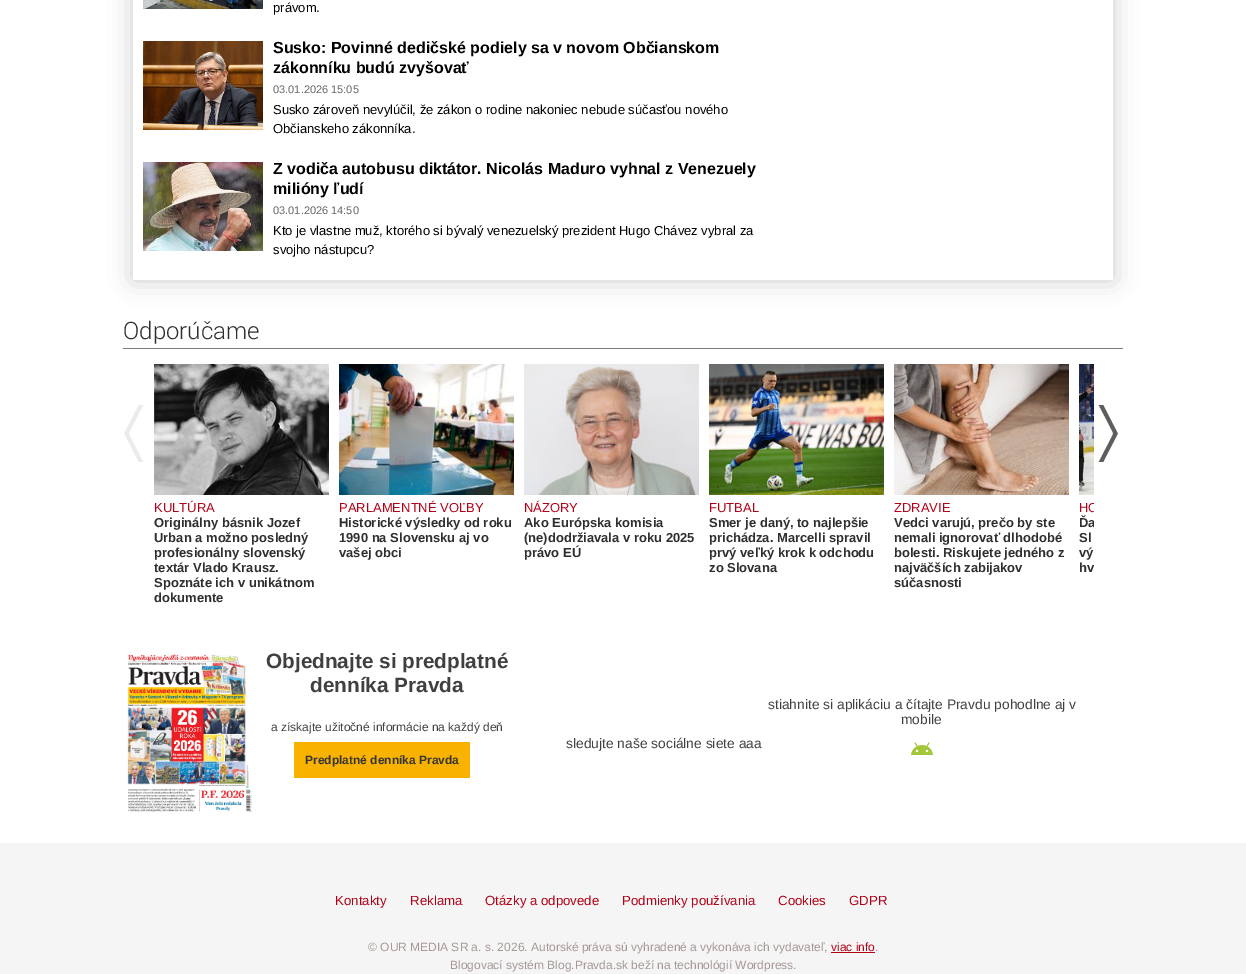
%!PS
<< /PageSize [1246 974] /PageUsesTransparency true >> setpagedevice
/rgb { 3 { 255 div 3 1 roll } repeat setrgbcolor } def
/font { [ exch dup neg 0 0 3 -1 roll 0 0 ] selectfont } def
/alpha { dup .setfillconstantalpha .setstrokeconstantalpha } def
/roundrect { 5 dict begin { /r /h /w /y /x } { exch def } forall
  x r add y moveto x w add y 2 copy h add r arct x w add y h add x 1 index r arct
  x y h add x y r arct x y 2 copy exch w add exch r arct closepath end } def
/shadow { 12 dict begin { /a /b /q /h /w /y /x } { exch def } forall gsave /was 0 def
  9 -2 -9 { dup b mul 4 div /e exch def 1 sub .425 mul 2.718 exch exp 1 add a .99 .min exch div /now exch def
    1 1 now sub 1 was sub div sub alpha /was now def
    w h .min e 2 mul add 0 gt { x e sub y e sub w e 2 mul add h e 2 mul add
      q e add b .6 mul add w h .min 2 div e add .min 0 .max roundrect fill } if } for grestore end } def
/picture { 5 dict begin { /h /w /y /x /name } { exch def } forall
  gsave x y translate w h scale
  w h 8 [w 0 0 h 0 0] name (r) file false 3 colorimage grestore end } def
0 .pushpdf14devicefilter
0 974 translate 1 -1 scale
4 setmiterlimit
255 255 255 rgb
0 0 1246 974 rectfill
gsave
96 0 moveto 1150 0 lineto 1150 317 lineto 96 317 lineto closepath 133 -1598 moveto 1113 -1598 lineto 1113 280 lineto 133 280 lineto closepath eoclip newpath
50 50 50 rgb
133 -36 980 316 0 12 0.25 shadow
grestore
(img/1.rgb) 143 0 120 9 picture
(img/2.rgb) 143 41 120 89 picture
(img/3.rgb) 143 162 120 89 picture
122 122 122 rgb
123 348 1000 1 rectfill
(img/4.rgb) 124 405 20 57 picture
(img/5.rgb) 1098 405 20 57 picture
(img/6.rgb) 154 364 175 131 picture
(img/7.rgb) 339 364 175 131 picture
(img/8.rgb) 524 364 175 131 picture
(img/9.rgb) 709 364 175 131 picture
(img/10.rgb) 894 364 175 131 picture
(img/11.rgb) 1079 364 15 131 picture
(img/12.rgb) 127 654 125 159 picture
250 178 1 rgb
294 742 176 36 rectfill
(img/13.rgb) 911 742 22 13 picture
245 245 245 rgb
0 843 1246 131 rectfill
176 1 23 rgb
831 952 44 1 rectfill
/LiberationSans-Regular 13 font
0 0 0 rgb
273 12 moveto (právom.) show
/LiberationSans-Bold 16 font
273 53 moveto (Susko: Povinné dedičské podiely sa v novom Občianskom) show
273 73 moveto (zákonníku budú zvyšovať) show
/LiberationSans-Regular 11 font
102 102 102 rgb
273 93 moveto (03.01.2026 15:05) show
/LiberationSans-Regular 13 font
0 0 0 rgb
273 114 moveto (Susko zároveň nevylúčil, že zákon o rodine nakoniec nebude súčasťou nového) show
273 133 moveto (Občianskeho zákonníka.) show
/LiberationSans-Bold 16 font
273 174 moveto (Z vodiča autobusu diktátor. Nicolás Maduro vyhnal z Venezuely) show
273 194 moveto (milióny ľudí) show
/LiberationSans-Regular 11 font
102 102 102 rgb
273 214 moveto (03.01.2026 14:50) show
/LiberationSans-Regular 13 font
0 0 0 rgb
273 235 moveto (Kto je vlastne muž, ktorého si bývalý venezuelský prezident Hugo Chávez vybral za) show
273 254 moveto (svojho nástupcu?) show
/Roboto-Light 24 font
47 47 47 rgb
123 339 moveto (Odporúčame) show
/LiberationSans-Regular 13 font
176 1 23 rgb
154 512 moveto (KULTÚRA) show
/LiberationSans-Bold 13 font
47 47 47 rgb
[
  [(Originálny básnik Jozef) 154 527]
  [(Urban a možno posledný) 154 542]
  [(profesionálny slovenský) 154 557]
  [(textár Vlado Krausz.) 154 572]
  [(Spoznáte ich v unikátnom) 154 587]
  [(dokumente) 154 602]
] { aload pop moveto show } forall
/LiberationSans-Regular 13 font
176 1 23 rgb
339 512 moveto (PARLAMENTNÉ VOĽBY) show
/LiberationSans-Bold 13 font
47 47 47 rgb
[
  [(Historické výsledky od roku) 339 527]
  [(1990 na Slovensku aj vo) 339 542]
  [(vašej obci) 339 557]
] { aload pop moveto show } forall
/LiberationSans-Regular 13 font
176 1 23 rgb
524 512 moveto (NÁZORY) show
/LiberationSans-Bold 13 font
47 47 47 rgb
[
  [(Ako Európska komisia) 524 527]
  [(\(ne\)dodržiavala v roku 2025) 524 542]
  [(právo EÚ) 524 557]
] { aload pop moveto show } forall
/LiberationSans-Regular 13 font
176 1 23 rgb
709 512 moveto (FUTBAL) show
/LiberationSans-Bold 13 font
47 47 47 rgb
[
  [(Smer je daný, to najlepšie) 709 527]
  [(prichádza. Marcelli spravil) 709 542]
  [(prvý veľký krok k odchodu) 709 557]
  [(zo Slovana) 709 572]
] { aload pop moveto show } forall
/LiberationSans-Regular 13 font
176 1 23 rgb
894 512 moveto (ZDRAVIE) show
/LiberationSans-Bold 13 font
47 47 47 rgb
[
  [(Vedci varujú, prečo by ste) 894 527]
  [(nemali ignorovať dlhodobé) 894 542]
  [(bolesti. Riskujete jedného z) 894 557]
  [(najväčších zabijakov) 894 572]
  [(súčasnosti) 894 587]
] { aload pop moveto show } forall
/LiberationSans-Regular 13 font
176 1 23 rgb
1079 512 moveto (HO) show
/LiberationSans-Bold 13 font
47 47 47 rgb
[
  [(Ďa) 1079 527]
  [(Sl) 1079 542]
  [(vý) 1079 557]
  [(hv) 1079 572]
] { aload pop moveto show } forall
255 255 255 rgb
1094 503 4 63 rectfill
/LiberationSans-Bold 20.75 font
64 64 64 rgb
266 668 moveto (Objednajte si predplatné) show
310 692 moveto (denníka Pravda) show
/LiberationSans-Regular 12 font
271 731 moveto (a získajte užitočné informácie na každý deň) show
/LiberationSans-Bold 12 font
54 54 54 rgb
305 764 moveto (Predplatné denníka Pravda) show
/LiberationSans-Regular 13.8 font
64 64 64 rgb
[
  [(stiahnite si aplikáciu a čítajte Pravdu pohodlne aj v) 768 709]
  [(mobile) 901 724]
  [(sledujte naše sociálne siete aaa) 566 748]
] { aload pop moveto show } forall
/LiberationSans-Regular 13.25 font
176 1 23 rgb
[
  [(Kontakty) 335 905]
  [(Reklama) 410 905]
  [(Otázky a odpovede) 485 905]
  [(Podmienky používania) 622 905]
  [(Cookies) 778 905]
  [(GDPR) 849 905]
] { aload pop moveto show } forall
/LiberationSans-Regular 12 font
165 151 150 rgb
368 951 moveto (© OUR MEDIA SR a. s. 2026. Autorské práva sú vyhradené a vykonáva ich vydavateľ,) show
176 1 23 rgb
831 951 moveto (viac info) show
165 151 150 rgb
875 951 moveto (.) show
450 969 moveto (Blogovací systém Blog.Pravda.sk beží na technológií Wordpress.) show
.poppdf14devicefilter showpage
